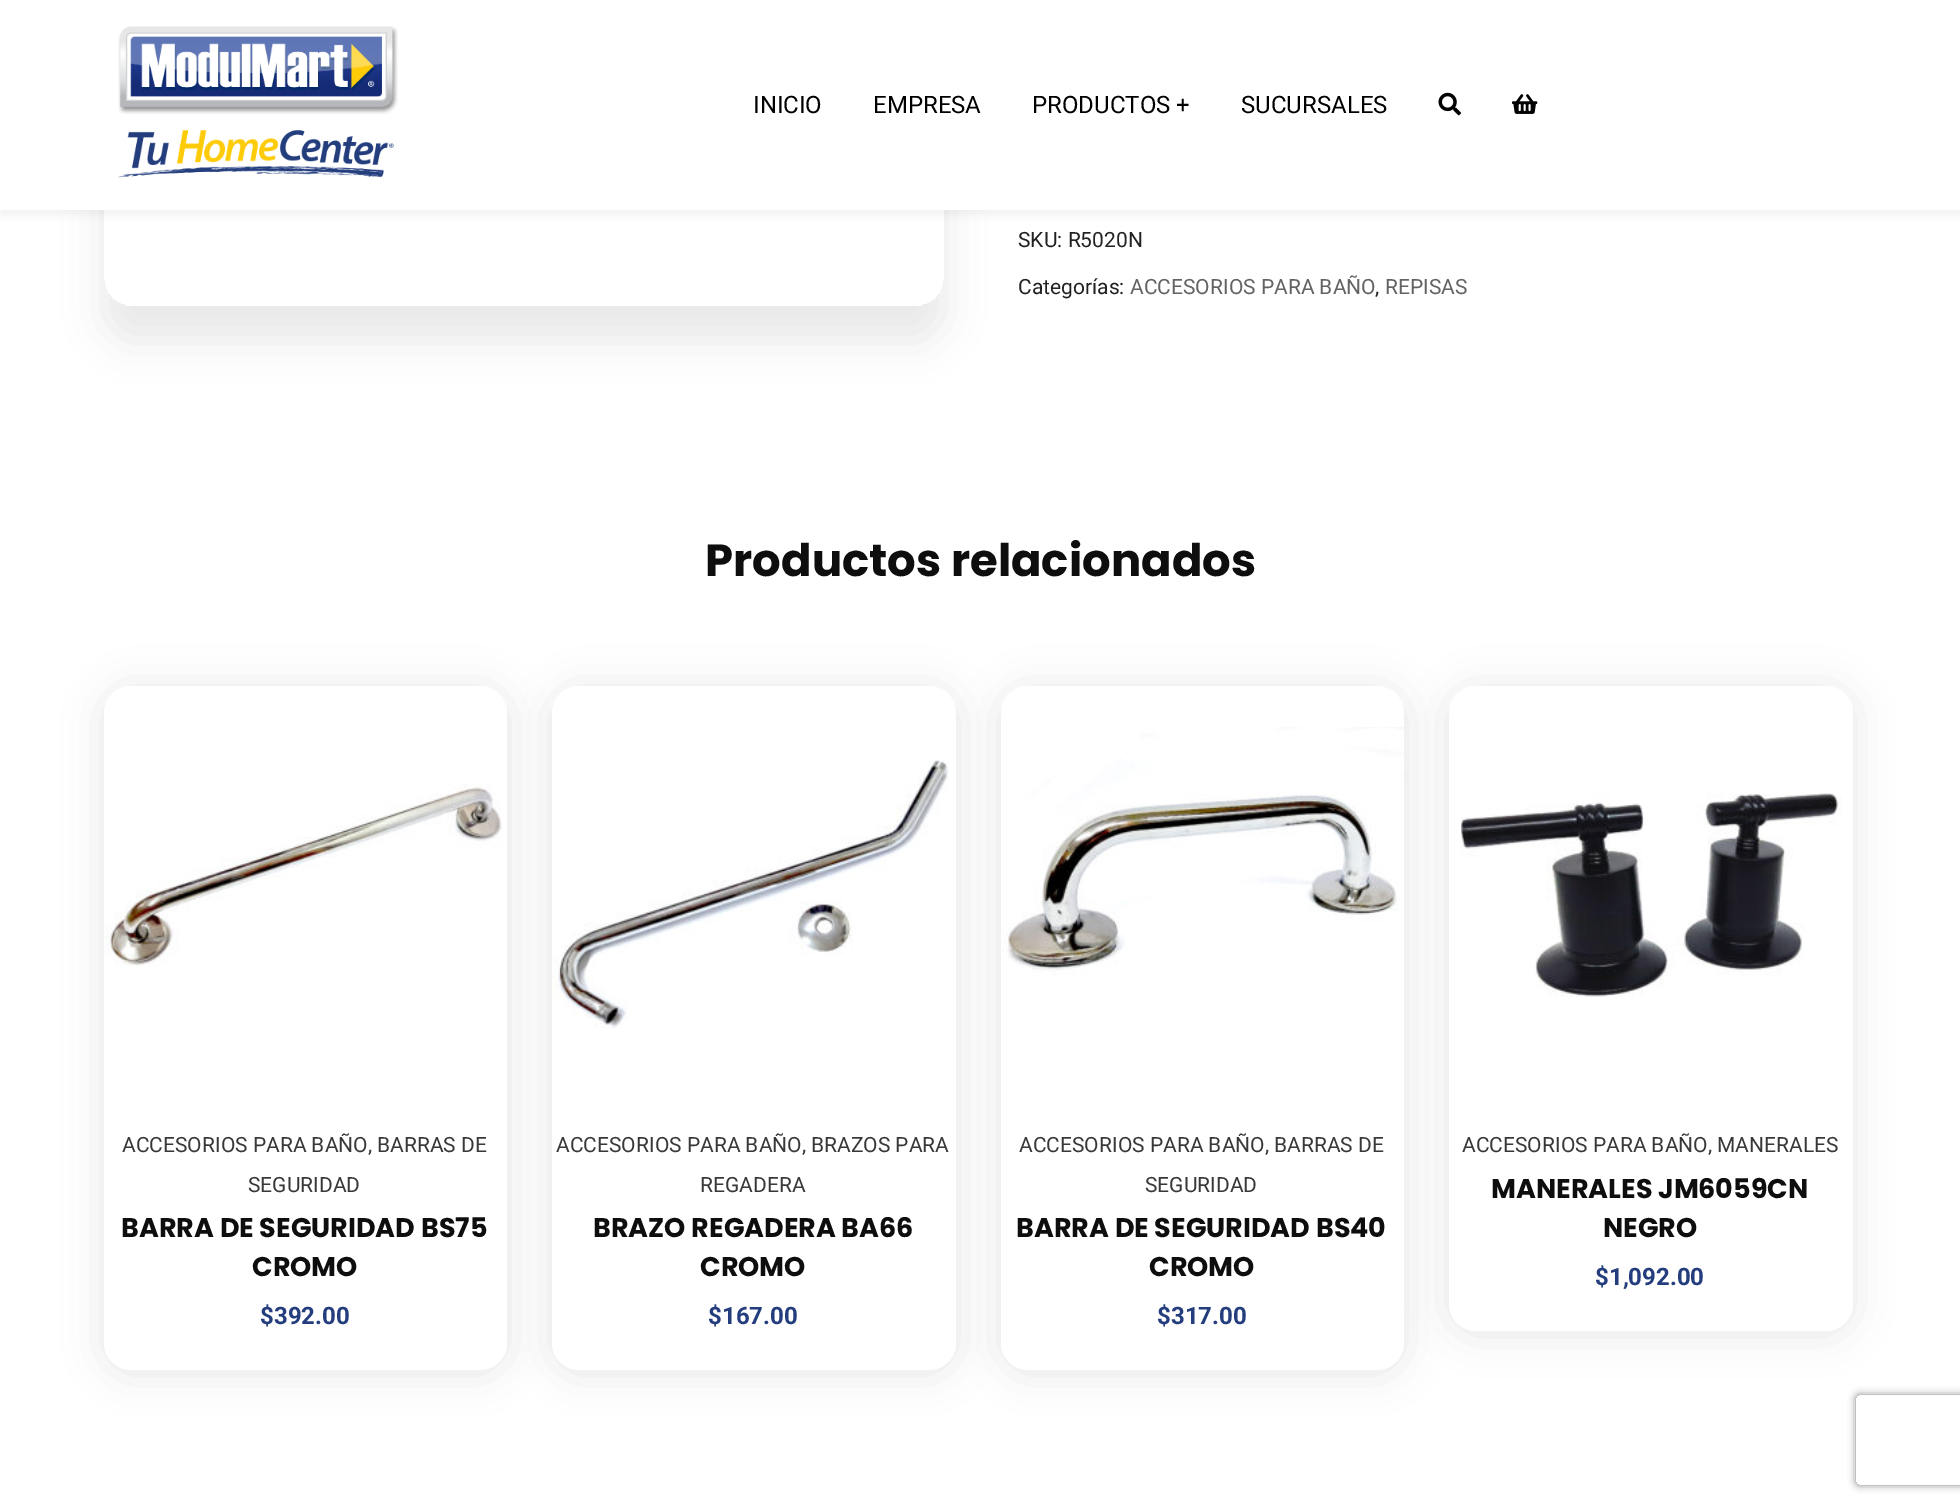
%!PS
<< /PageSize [1960 1505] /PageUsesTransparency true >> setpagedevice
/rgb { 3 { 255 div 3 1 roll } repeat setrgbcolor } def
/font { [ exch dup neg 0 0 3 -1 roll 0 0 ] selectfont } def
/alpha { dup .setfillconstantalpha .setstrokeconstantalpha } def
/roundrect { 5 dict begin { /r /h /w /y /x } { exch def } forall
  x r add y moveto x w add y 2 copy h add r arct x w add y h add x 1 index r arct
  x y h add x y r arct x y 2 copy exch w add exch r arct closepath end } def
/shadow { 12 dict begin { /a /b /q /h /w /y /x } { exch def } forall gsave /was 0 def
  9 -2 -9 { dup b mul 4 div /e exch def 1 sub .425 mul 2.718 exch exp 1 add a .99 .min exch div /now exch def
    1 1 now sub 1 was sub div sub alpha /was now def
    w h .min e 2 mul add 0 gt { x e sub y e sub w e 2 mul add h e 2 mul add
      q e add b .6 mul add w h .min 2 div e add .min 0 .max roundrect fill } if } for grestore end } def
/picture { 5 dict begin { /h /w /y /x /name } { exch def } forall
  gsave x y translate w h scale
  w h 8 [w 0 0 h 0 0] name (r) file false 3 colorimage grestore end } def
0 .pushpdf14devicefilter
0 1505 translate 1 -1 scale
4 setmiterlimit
255 255 255 rgb
0 0 1960 1505 rectfill
gsave
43 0 moveto 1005 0 lineto 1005 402 lineto 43 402 lineto closepath 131 -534 moveto 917 -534 lineto 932 -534 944 -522 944 -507 curveto 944 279 lineto 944 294 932 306 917 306 curveto 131 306 lineto 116 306 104 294 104 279 curveto 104 -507 lineto 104 -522 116 -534 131 -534 curveto closepath eoclip newpath
16 16 16 rgb
104 -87 840 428 27 20 0.09 shadow
grestore
(img/4.rgb) 125 210 797 96 picture
0 0 0 rgb
0 5 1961 210 0 4.5 0.05 shadow
255 255 255 rgb
0 0 1960 210 rectfill
(img/1.rgb) 118 26 280 152 picture
(img/2.rgb) 1438 92 23 24 picture
(img/3.rgb) 1512 94 26 20 picture
54 54 54 rgb
104 689 403 684 27 20 0.13 shadow
255 255 255 rgb
104 686 403 684 27 roundrect fill
(img/5.rgb) 104 783 398 183 picture
54 54 54 rgb
552 689 404 684 27 20 0.13 shadow
255 255 255 rgb
552 686 404 684 27 roundrect fill
(img/6.rgb) 552 760 397 269 picture
54 54 54 rgb
1001 689 403 684 27 20 0.13 shadow
255 255 255 rgb
1001 686 403 684 27 roundrect fill
(img/7.rgb) 1002 727 402 248 picture
54 54 54 rgb
1449 689 404 645 27 20 0.13 shadow
255 255 255 rgb
1449 686 404 645 27 roundrect fill
(img/8.rgb) 1460 793 382 205 picture
gsave
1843 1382 moveto 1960 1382 lineto 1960 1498 lineto 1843 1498 lineto closepath 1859 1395 moveto 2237 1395 lineto 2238.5 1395 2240 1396.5 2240 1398 curveto 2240 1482 lineto 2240 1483.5 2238.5 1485 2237 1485 curveto 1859 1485 lineto 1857.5 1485 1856 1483.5 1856 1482 curveto 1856 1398 lineto 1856 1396.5 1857.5 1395 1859 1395 curveto closepath eoclip newpath
128 128 128 rgb
1856 1395 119 90 3 4 1 shadow
grestore
/Roboto-Regular 24 font
0 0 0 rgb
[
  [(INICIO) 753 113]
  [(EMPRESA) 873 113]
  [(PRODUCTOS +) 1032 113]
  [(SUCURSALES) 1241 113]
] { aload pop moveto show } forall
/Roboto-Regular 21 font
34 34 34 rgb
1018 247 moveto (SKU: R5020N) show
1018 294 moveto (Categorías:) show
99 99 99 rgb
1130 294 moveto (ACCESORIOS PARA BAÑO) show
34 34 34 rgb
1375 294 moveto (,) show
99 99 99 rgb
1385 294 moveto (REPISAS) show
/Poppins-Bold 45 font
14 14 14 rgb
705 576 moveto (Productos relacionados) show
/Roboto-Regular 21 font
56 56 56 rgb
122 1152 moveto (ACCESORIOS PARA BAÑO, BARRAS DE) show
248 1192 moveto (SEGURIDAD) show
/Poppins-Bold 27 font
14 14 14 rgb
121 1237 moveto (BARRA DE SEGURIDAD BS75) show
252 1276 moveto (CROMO) show
/Roboto-Bold 24 font
35 61 125 rgb
260 1324 moveto ($392.00) show
/Roboto-Regular 21 font
56 56 56 rgb
556 1152 moveto (ACCESORIOS PARA BAÑO, BRAZOS PARA) show
700 1192 moveto (REGADERA) show
/Poppins-Bold 27 font
14 14 14 rgb
593 1237 moveto (BRAZO REGADERA BA66) show
700 1276 moveto (CROMO) show
/Roboto-Bold 24 font
35 61 125 rgb
708 1324 moveto ($167.00) show
/Roboto-Regular 21 font
56 56 56 rgb
1019 1152 moveto (ACCESORIOS PARA BAÑO, BARRAS DE) show
1145 1192 moveto (SEGURIDAD) show
/Poppins-Bold 27 font
14 14 14 rgb
1016 1237 moveto (BARRA DE SEGURIDAD BS40) show
1149 1276 moveto (CROMO) show
/Roboto-Bold 24 font
35 61 125 rgb
1157 1324 moveto ($317.00) show
/Roboto-Regular 21 font
56 56 56 rgb
1462 1152 moveto (ACCESORIOS PARA BAÑO, MANERALES) show
/Poppins-Bold 27 font
14 14 14 rgb
1491 1198 moveto (MANERALES JM6059CN) show
1603 1237 moveto (NEGRO) show
/Roboto-Bold 24 font
35 61 125 rgb
1595 1285 moveto ($1,092.00) show
.poppdf14devicefilter showpage
